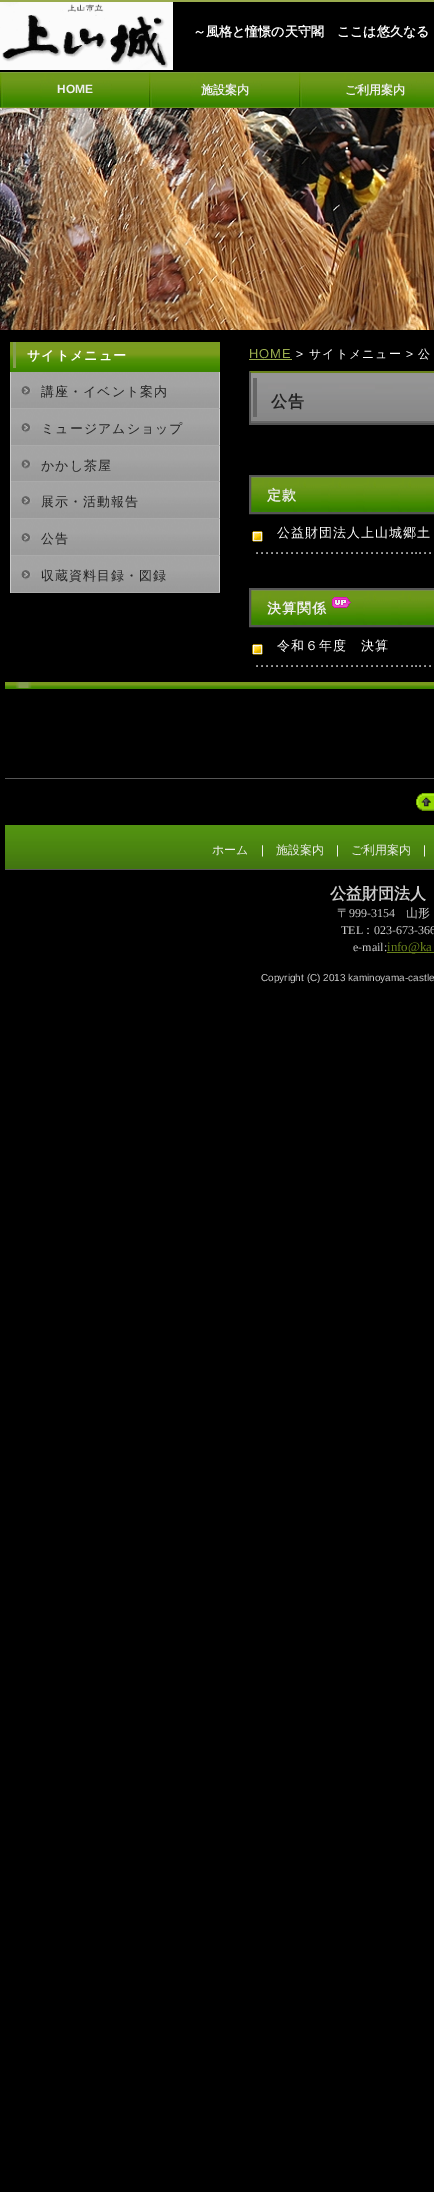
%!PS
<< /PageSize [434 2192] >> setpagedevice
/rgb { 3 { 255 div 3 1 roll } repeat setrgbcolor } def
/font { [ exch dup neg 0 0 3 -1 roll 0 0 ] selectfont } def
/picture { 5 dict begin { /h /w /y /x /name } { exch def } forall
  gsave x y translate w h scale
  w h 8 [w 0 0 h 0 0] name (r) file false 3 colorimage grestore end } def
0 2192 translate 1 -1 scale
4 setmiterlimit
0 0 0 rgb
0 0 434 2192 rectfill
153 171 78 rgb
0 0 434 2 rectfill
(img/1.rgb) 0 2 173 68 picture
(img/2.rgb) 416 72 18 35 picture
(img/3.rgb) 0 72 416 35 picture
(img/4.rgb) 0 107 434 1 picture
(img/5.rgb) 0 108 434 222 picture
(img/6.rgb) 10 342 210 30 picture
(img/7.rgb) 11 372 208 36 picture
[
  [219 372 1 221 204 204 204]
  [10 408 210 1 170 170 170]
  [10 372 1 37 204 204 204]
] { aload pop rgb rectfill } forall
(img/7.rgb) 11 409 208 36 picture
170 170 170 rgb
10 445 210 1 rectfill
204 204 204 rgb
10 409 1 37 rectfill
(img/8.rgb) 11 446 208 35 picture
170 170 170 rgb
10 481 210 1 rectfill
204 204 204 rgb
10 446 1 36 rectfill
(img/7.rgb) 11 482 208 36 picture
170 170 170 rgb
10 518 210 1 rectfill
204 204 204 rgb
10 482 1 37 rectfill
(img/7.rgb) 11 519 208 36 picture
170 170 170 rgb
10 555 210 1 rectfill
204 204 204 rgb
10 519 1 37 rectfill
(img/7.rgb) 11 556 208 36 picture
[
  [10 592 210 1 170 170 170]
  [10 556 1 37 204 204 204]
  [249 359 43 1 153 171 78]
] { aload pop rgb rectfill } forall
(img/9.rgb) 251 373 183 50 picture
105 130 27 rgb
249 371 moveto 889 371 lineto 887 373 lineto 251 373 lineto closepath fill
85 85 85 rgb
249 423 185 2 rectfill
249 425 moveto 249 371 lineto 251 373 lineto 251 423 lineto closepath fill
(img/10.rgb) 251 477 183 35 picture
2 setlinewidth
250 476 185 37 rectstroke
(img/11.rgb) 252 531 11 11 picture
(img/12.rgb) 256 552 175 2 picture
(img/10.rgb) 251 590 183 35 picture
250 589 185 37 rectstroke
(img/13.rgb) 332 597 19 11 picture
(img/11.rgb) 252 644 11 11 picture
(img/12.rgb) 256 665 175 2 picture
(img/14.rgb) 5 682 429 7 picture
5 778 429 1 rectfill
(img/15.rgb) 416 793 18 18 picture
(img/16.rgb) 5 825 429 44 picture
5 869 429 1 rectfill
105 130 27 rgb
387 952 47 1 rectfill
/WenQuanYiZenHei-Bold 13 font
255 255 255 rgb
193 36 moveto (～風格と憧憬の天守閣　ここは悠久なる) show
/LiberationSans-Bold 12 font
238 238 238 rgb
57 93 moveto (HOME) show
/WenQuanYiZenHei-Bold 12 font
201 94 moveto (施設案内) show
345 94 moveto (ご利用案内) show
/WenQuanYiZenHei-Bold 13 font
255 255 255 rgb
27 360 moveto 1 0 (サイトメニュー) ashow
/WenQuanYiZenHei-Medium 13 font
34 34 34 rgb
41 396 moveto 1 0 (講座・イベント案内) ashow
41 433 moveto 1 0 (ミュージアムショップ) ashow
41 470 moveto 1 0 (かかし茶屋) ashow
41 506 moveto 1 0 (展示・活動報告) ashow
41 543 moveto 1 0 (公告) ashow
41 580 moveto 1 0 (収蔵資料目録・図録) ashow
/LiberationSans-Regular 13 font
153 171 78 rgb
249 358 moveto 1 0 (HOME) ashow
/LiberationSans-Regular 12 font
255 255 255 rgb
296 358 moveto 1 0 (>) ashow
/WenQuanYiZenHei-Medium 12 font
309 358 moveto 1 0 (サイトメニュー) ashow
/LiberationSans-Regular 12 font
406 358 moveto 1 0 (>) ashow
/WenQuanYiZenHei-Medium 12 font
418 358 moveto 1 0 (公) ashow
/WenQuanYiZenHei-Bold 16 font
34 34 34 rgb
271 407 moveto 1 0 (公告) ashow
/WenQuanYiZenHei-Bold 14 font
238 238 238 rgb
267 500 moveto 1 0 (定款) ashow
/WenQuanYiZenHei-Medium 13 font
255 255 255 rgb
277 537 moveto 1 0 (公益財団法人上山城郷土) ashow
/WenQuanYiZenHei-Bold 14 font
238 238 238 rgb
267 613 moveto 1 0 (決算関係) ashow
/WenQuanYiZenHei-Medium 13 font
255 255 255 rgb
277 650 moveto 1 0 (令和６年度　決算) ashow
/WenQuanYiZenHei-Medium 12 font
238 238 238 rgb
212 854 moveto (ホーム) show
/LiberationSans-Regular 12 font
261 854 moveto (|) show
/WenQuanYiZenHei-Medium 12 font
276 854 moveto (施設案内) show
/LiberationSans-Regular 12 font
336 854 moveto (|) show
/WenQuanYiZenHei-Medium 12 font
351 854 moveto (ご利用案内) show
/LiberationSans-Regular 12 font
423 854 moveto (|) show
/WenQuanYiZenHei-Bold 16 font
204 204 204 rgb
330 899 moveto (公益財団法人) show
/WenQuanYiZenHei-Medium 12 font
337 917 moveto (〒) show
/LiberationSerif-Regular 12 font
349 917 moveto (999-3154) show
/WenQuanYiZenHei-Medium 12 font
406 917 moveto (山形) show
/LiberationSerif-Regular 12 font
341 934 moveto (TEL) show
/WenQuanYiZenHei-Medium 12 font
362 934 moveto (：) show
/LiberationSerif-Regular 12 font
374 934 moveto (023-673-366) show
353 951 moveto (e-mail:) show
/LiberationSerif-Regular 13 font
105 130 27 rgb
387 951 moveto (info@ka) show
/LiberationSans-Regular 10 font
204 204 204 rgb
261 981 moveto (Copyright \(C\) 2013 kaminoyama-castle) show
showpage
